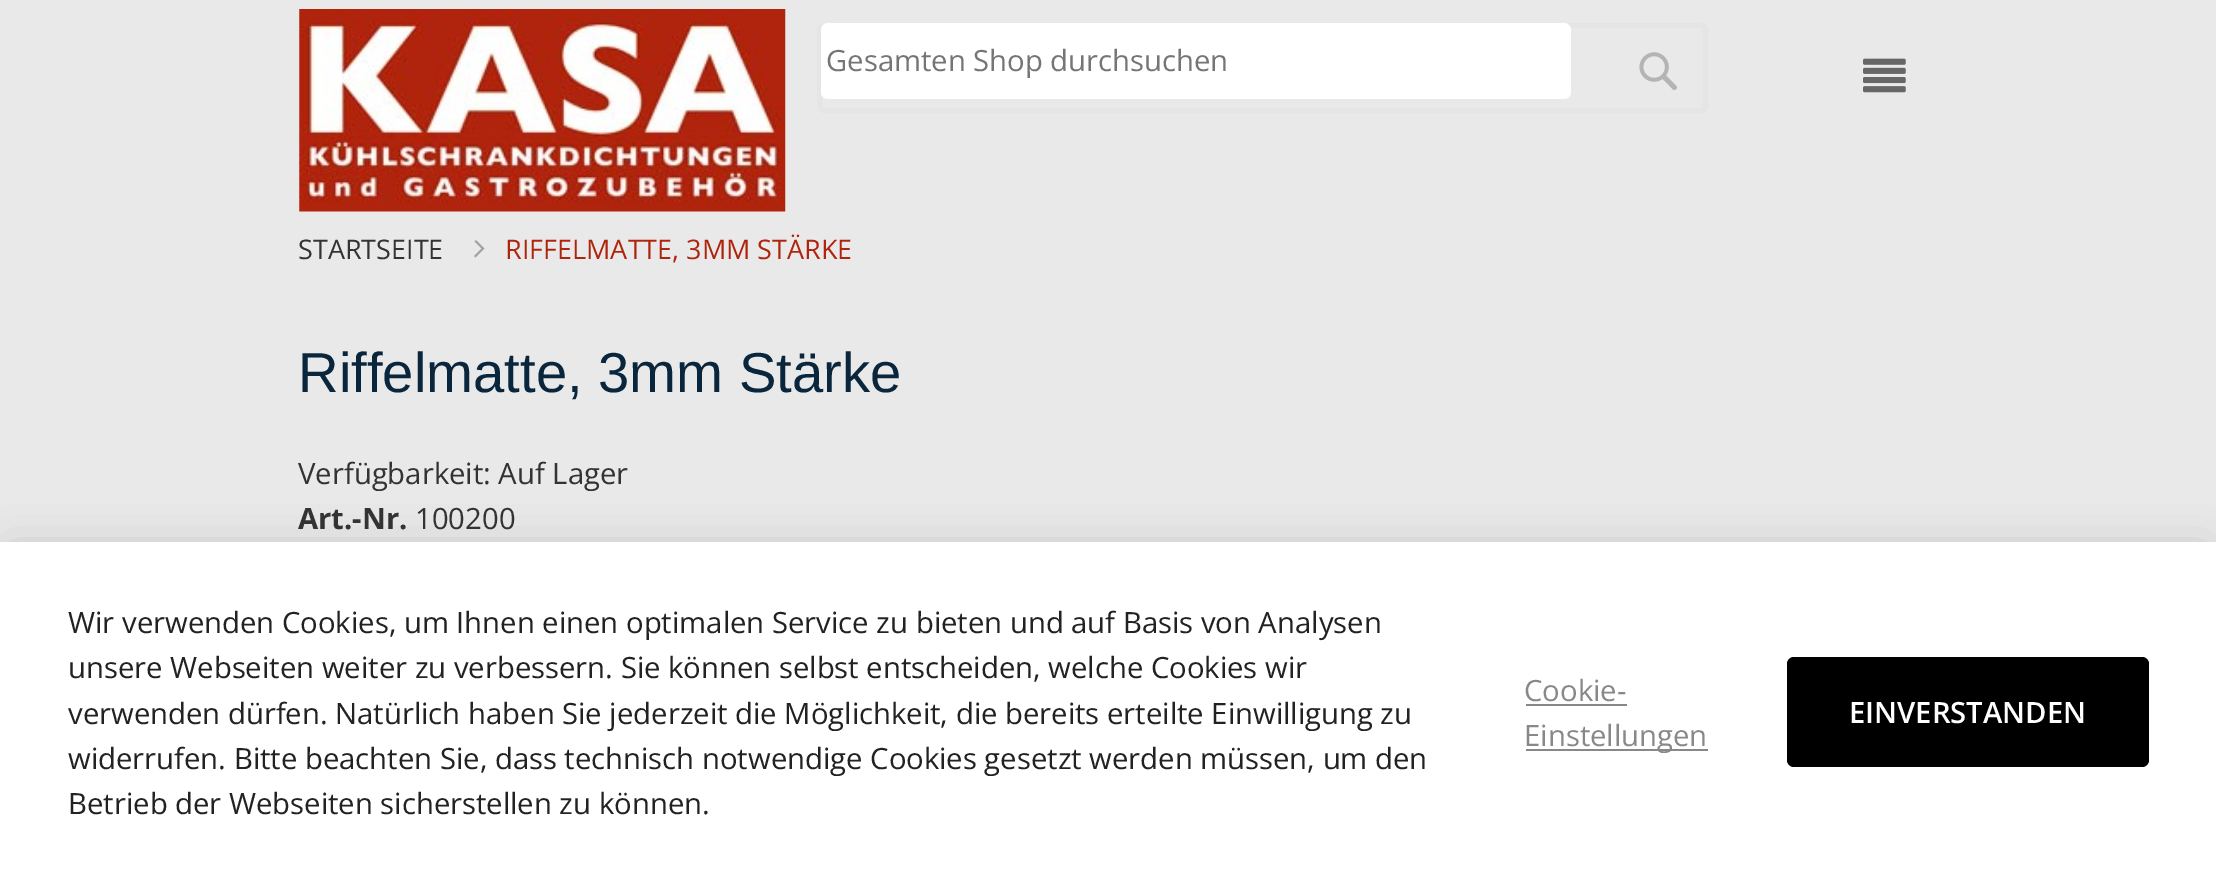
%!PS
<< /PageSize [2216 881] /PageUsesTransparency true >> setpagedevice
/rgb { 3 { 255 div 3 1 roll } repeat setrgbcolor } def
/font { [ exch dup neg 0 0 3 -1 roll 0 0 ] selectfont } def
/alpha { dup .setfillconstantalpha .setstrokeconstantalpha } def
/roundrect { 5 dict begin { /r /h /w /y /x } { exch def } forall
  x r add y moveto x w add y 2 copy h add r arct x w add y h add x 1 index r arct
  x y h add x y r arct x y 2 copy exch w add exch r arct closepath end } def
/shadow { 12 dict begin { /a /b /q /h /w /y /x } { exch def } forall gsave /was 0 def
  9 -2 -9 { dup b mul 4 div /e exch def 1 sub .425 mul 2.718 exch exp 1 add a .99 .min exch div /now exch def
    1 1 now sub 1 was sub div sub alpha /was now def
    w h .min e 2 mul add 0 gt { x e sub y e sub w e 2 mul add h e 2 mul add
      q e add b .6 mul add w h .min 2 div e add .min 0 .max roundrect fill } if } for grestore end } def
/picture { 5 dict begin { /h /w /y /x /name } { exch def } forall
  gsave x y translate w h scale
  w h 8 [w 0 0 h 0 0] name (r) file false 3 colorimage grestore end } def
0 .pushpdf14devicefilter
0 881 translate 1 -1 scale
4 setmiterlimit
233 233 233 rgb
0 0 2216 881 rectfill
(img/1.rgb) 299 9 487 203 picture
229 229 229 rgb
5 setlinewidth
819.5 25.5 886 85 4.5 roundrect stroke
255 255 255 rgb
821 23 750 76 7 roundrect fill
(img/2.rgb) 1639 52 38 38 picture
(img/3.rgb) 1863 58 43 35 picture
163 163 163 rgb
484.5 248.5 moveto 476 240 lineto 474.5 241.5 lineto 481.5 248.5 lineto 474 256 lineto 475.5 257.5 lineto closepath fill
0 0 0 rgb
11 554 2194 317 0 22.5 0.2 shadow
[
  [0 542 2216 339 255 255 255]
  [1526 704 101 2 136 136 136]
  [1526 749 182 2 136 136 136]
] { aload pop rgb rectfill } forall
0 0 0 rgb
1787 657 362 110 7 roundrect fill
/OpenSans-Regular 29.25 font
117 117 117 rgb
826 71 moveto (Gesamten Shop durchsuchen) show
/OpenSans-Regular 27 font
51 51 51 rgb
298 259 moveto (STARTSEITE) show
176 36 13 rgb
505 259 moveto (RIFFELMATTE, 3MM STÄRKE) show
/LiberationSans-Regular 56.25 font
10 38 60 rgb
298 392 moveto (Riffelmatte, 3mm Stärke) show
/OpenSans-Regular 29.25 font
51 51 51 rgb
298 484 moveto (Verfügbarkeit: Auf Lager) show
/OpenSans-Bold 29.25 font
298 529 moveto (Art.-Nr.) show
/OpenSans-Regular 29.25 font
415 529 moveto (100200) show
34 34 34 rgb
[
  [(Wir verwenden Cookies, um Ihnen einen optimalen Service zu bieten und auf Basis von Analysen) 68 633]
  [(unsere Webseiten weiter zu verbessern. Sie können selbst entscheiden, welche Cookies wir) 68 678]
  [(verwenden dürfen. Natürlich haben Sie jederzeit die Möglichkeit, die bereits erteilte Einwilligung zu) 68 724]
  [(widerrufen. Bitte beachten Sie, dass technisch notwendige Cookies gesetzt werden müssen, um den) 68 769]
  [(Betrieb der Webseiten sicherstellen zu können.) 68 814]
] { aload pop moveto show } forall
136 136 136 rgb
1524 701 moveto (Cookie-) show
1524 746 moveto (Einstellungen) show
/OpenSans-SemiBold 29.25 font
255 255 255 rgb
1849 723 moveto (EINVERSTANDEN) show
.poppdf14devicefilter showpage
